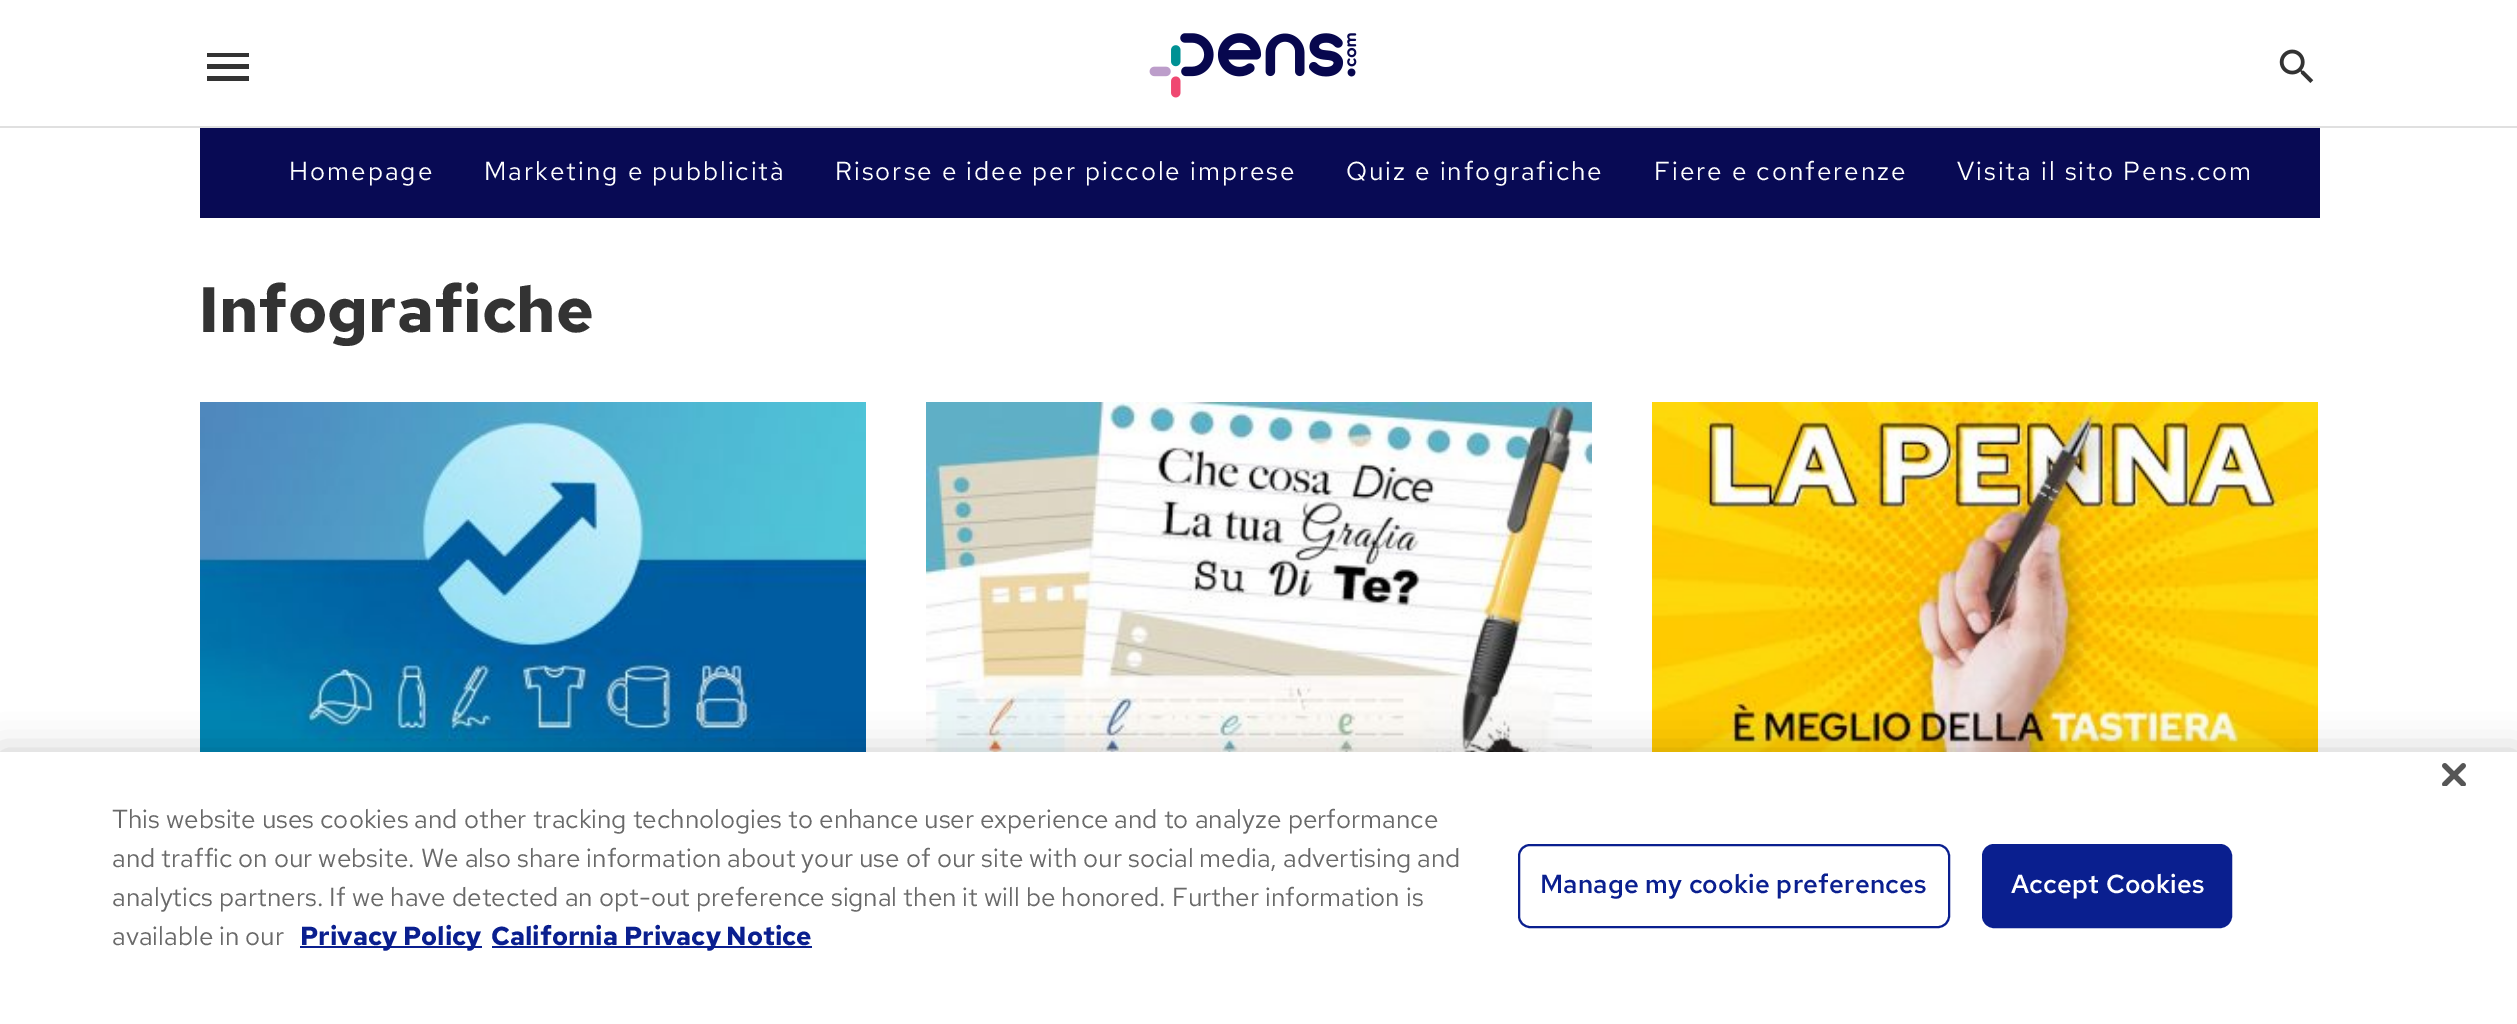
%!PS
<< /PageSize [2517 1024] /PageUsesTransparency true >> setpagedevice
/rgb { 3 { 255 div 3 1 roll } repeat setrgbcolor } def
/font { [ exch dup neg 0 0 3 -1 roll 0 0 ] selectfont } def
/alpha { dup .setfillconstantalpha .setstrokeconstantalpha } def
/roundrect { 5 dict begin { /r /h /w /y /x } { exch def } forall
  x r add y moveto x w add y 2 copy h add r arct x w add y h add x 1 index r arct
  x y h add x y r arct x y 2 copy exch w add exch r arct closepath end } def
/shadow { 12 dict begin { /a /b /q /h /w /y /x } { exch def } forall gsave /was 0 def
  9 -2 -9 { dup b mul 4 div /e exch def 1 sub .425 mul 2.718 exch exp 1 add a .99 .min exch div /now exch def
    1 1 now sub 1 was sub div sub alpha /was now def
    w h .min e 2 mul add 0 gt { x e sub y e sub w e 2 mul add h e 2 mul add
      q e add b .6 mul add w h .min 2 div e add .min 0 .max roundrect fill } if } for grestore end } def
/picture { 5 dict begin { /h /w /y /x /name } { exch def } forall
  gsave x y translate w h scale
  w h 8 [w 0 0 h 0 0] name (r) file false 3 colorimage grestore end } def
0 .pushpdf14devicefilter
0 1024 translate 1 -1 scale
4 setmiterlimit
255 255 255 rgb
0 0 2517 1024 rectfill
224 224 224 rgb
0 126 2517 2 rectfill
51 51 51 rgb
207 53 moveto 249 53 lineto 249 57 lineto 207 57 lineto closepath 207 69 moveto 207 64 lineto 249 64 lineto 249 69 lineto closepath 207 81 moveto 207 76 lineto 249 76 lineto 249 81 lineto closepath fill
(img/1.rgb) 1149 33 208 65 picture
(img/2.rgb) 2279 49 35 34 picture
8 10 84 rgb
200 128 2120 88 rectfill
8 10 80 rgb
200 216 2120 2 rectfill
(img/3.rgb) 200 402 666 350 picture
(img/4.rgb) 926 402 666 350 picture
(img/5.rgb) 1652 402 666 350 picture
0 0 0 rgb
0 752 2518 272 0 18 0.2 shadow
255 255 255 rgb
0 752 2517 272 rectfill
(img/6.rgb) 2442 763 24 23 picture
10 31 143 rgb
300 946 182 2 rectfill
492 946 320 2 rectfill
2 setlinewidth
1519 845 430 82 11 roundrect stroke
1983 845 248 82 11 roundrect gsave fill grestore
stroke
/RedHatText-Regular 26 font
255 255 255 rgb
289 180 moveto 2 0 (Homepage) ashow
484 180 moveto 2 0 (Marketing e pubblicità) ashow
835 180 moveto 2 0 (Risorse e idee per piccole imprese) ashow
1346 180 moveto 2 0 (Quiz e infografiche) ashow
1654 180 moveto 2 0 (Fiere e conferenze) ashow
1957 180 moveto 2 0 (Visita il sito Pens.com) ashow
/RedHatText-Bold 64 font
51 51 51 rgb
199 332 moveto (Infografiche) show
/RedHatText-Regular 26.02 font
105 105 105 rgb
[
  [(This website uses cookies and other tracking technologies to enhance user experience and to analyze performance) 112 828]
  [(and traffic on our website. We also share information about your use of our site with our social media, advertising and) 112 867]
  [(analytics partners. If we have detected an opt-out preference signal then it will be honored. Further information is) 112 906]
  [(available in our) 112 945]
] { aload pop moveto show } forall
/RedHatText-Bold 26.02 font
10 31 143 rgb
300 945 moveto (Privacy Policy) show
491 945 moveto (California Privacy Notice) show
/RedHatText-SemiBold 26.02 font
1540 893 moveto 0.25 0 (Manage my cookie preferences) ashow
255 255 255 rgb
2011 893 moveto 0.25 0 (Accept Cookies) ashow
.poppdf14devicefilter showpage
